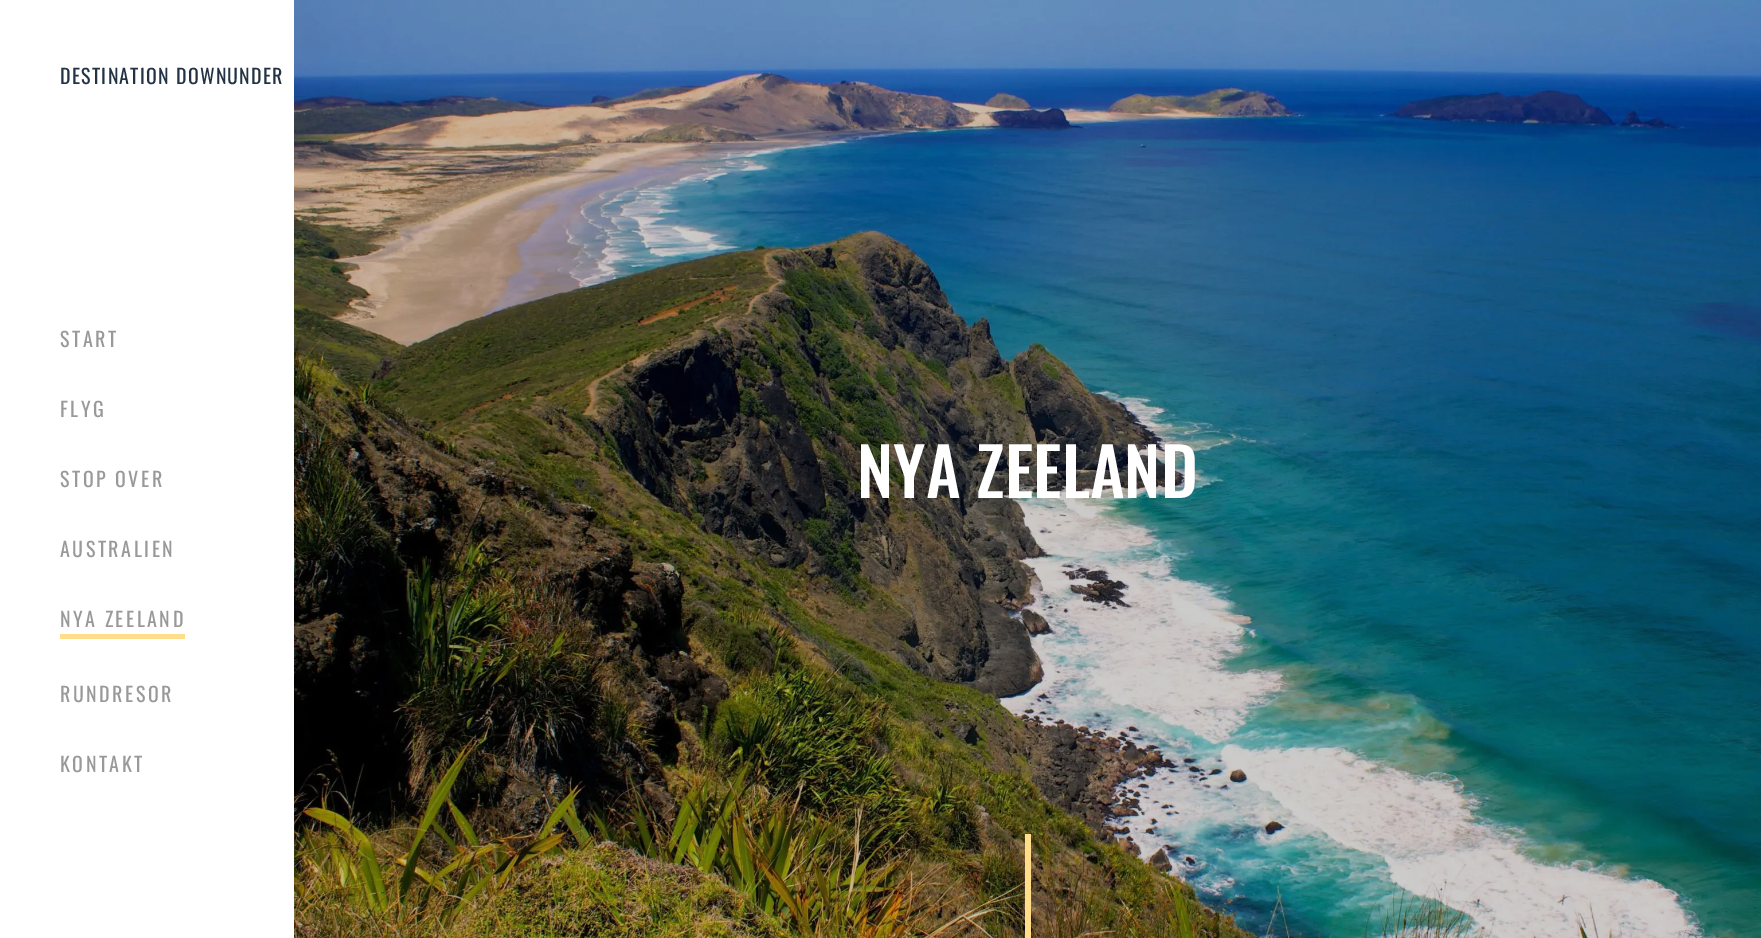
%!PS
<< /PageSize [1761 938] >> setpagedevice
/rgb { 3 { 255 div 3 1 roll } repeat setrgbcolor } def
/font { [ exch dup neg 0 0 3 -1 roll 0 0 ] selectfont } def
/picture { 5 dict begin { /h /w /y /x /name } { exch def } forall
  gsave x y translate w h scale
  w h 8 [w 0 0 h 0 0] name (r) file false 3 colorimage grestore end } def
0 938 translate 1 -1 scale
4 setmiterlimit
255 255 255 rgb
0 0 1761 938 rectfill
255 221 139 rgb
60 634 125 5 rectfill
(img/1.rgb) 294 0 1467 938 picture
1025 834 6 104 rectfill
/Oswald-Regular 20 font
35 50 68 rgb
60 84 moveto 1.25 0 (DESTINATION DOWNUNDER) ashow
153 153 153 rgb
60 347 moveto 2.5 0 (START) ashow
60 417 moveto 2.5 0 (FLYG) ashow
60 487 moveto 2.5 0 (STOP OVER) ashow
60 557 moveto 2.5 0 (AUSTRALIEN) ashow
60 627 moveto 2.5 0 (NYA ZEELAND) ashow
60 702 moveto 2.5 0 (RUNDRESOR) ashow
60 772 moveto 2.5 0 (KONTAKT) ashow
/Oswald-Medium 66.5 font
255 255 255 rgb
857 498 moveto (NYA ZEELAND) show
showpage
